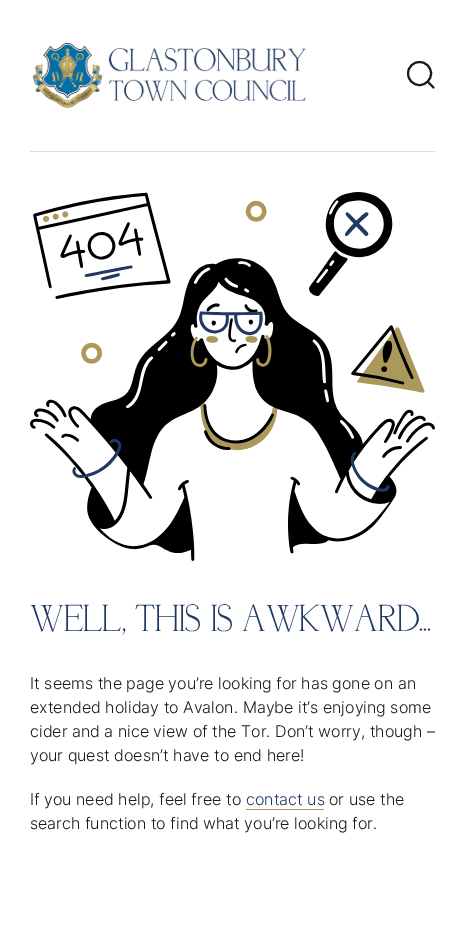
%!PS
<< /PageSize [465 933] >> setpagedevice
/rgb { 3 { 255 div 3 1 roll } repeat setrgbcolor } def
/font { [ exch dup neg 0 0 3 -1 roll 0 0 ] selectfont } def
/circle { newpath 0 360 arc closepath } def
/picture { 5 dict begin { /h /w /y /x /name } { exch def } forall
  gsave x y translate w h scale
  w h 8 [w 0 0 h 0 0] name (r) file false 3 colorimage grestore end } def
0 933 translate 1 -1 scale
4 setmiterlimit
255 255 255 rgb
0 0 465 933 rectfill
(img/1.rgb) 32 42 274 66 picture
26 25 25 rgb
2 setlinewidth
419.5 73.5 11.5 circle stroke
1 setlinecap
1 setlinejoin
428.5 82.5 moveto 433.5 87.5 lineto stroke
221 221 221 rgb
30 151 405 1 rectfill
(img/2.rgb) 30 192 405 369 picture
171 153 91 rgb
246 809 78 1 rectfill
/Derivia-Regular 35 font
32 56 100 rgb
30 631 moveto (WELL, THIS IS AWKWARD...) show
/Inter-Light 16 font
26 25 25 rgb
[
  [(It seems the page you’re looking for has gone on an) 30 689]
  [(extended holiday to Avalon. Maybe it’s enjoying some) 30 713]
  [(cider and a nice view of the Tor. Don’t worry, though –) 30 737]
  [(your quest doesn’t have to end here!) 30 761]
  [(If you need help, feel free to) 30 805]
] { aload pop moveto show } forall
32 56 100 rgb
246 805 moveto (contact us) show
26 25 25 rgb
329 805 moveto (or use the) show
30 829 moveto (search function to find what you’re looking for.) show
showpage
